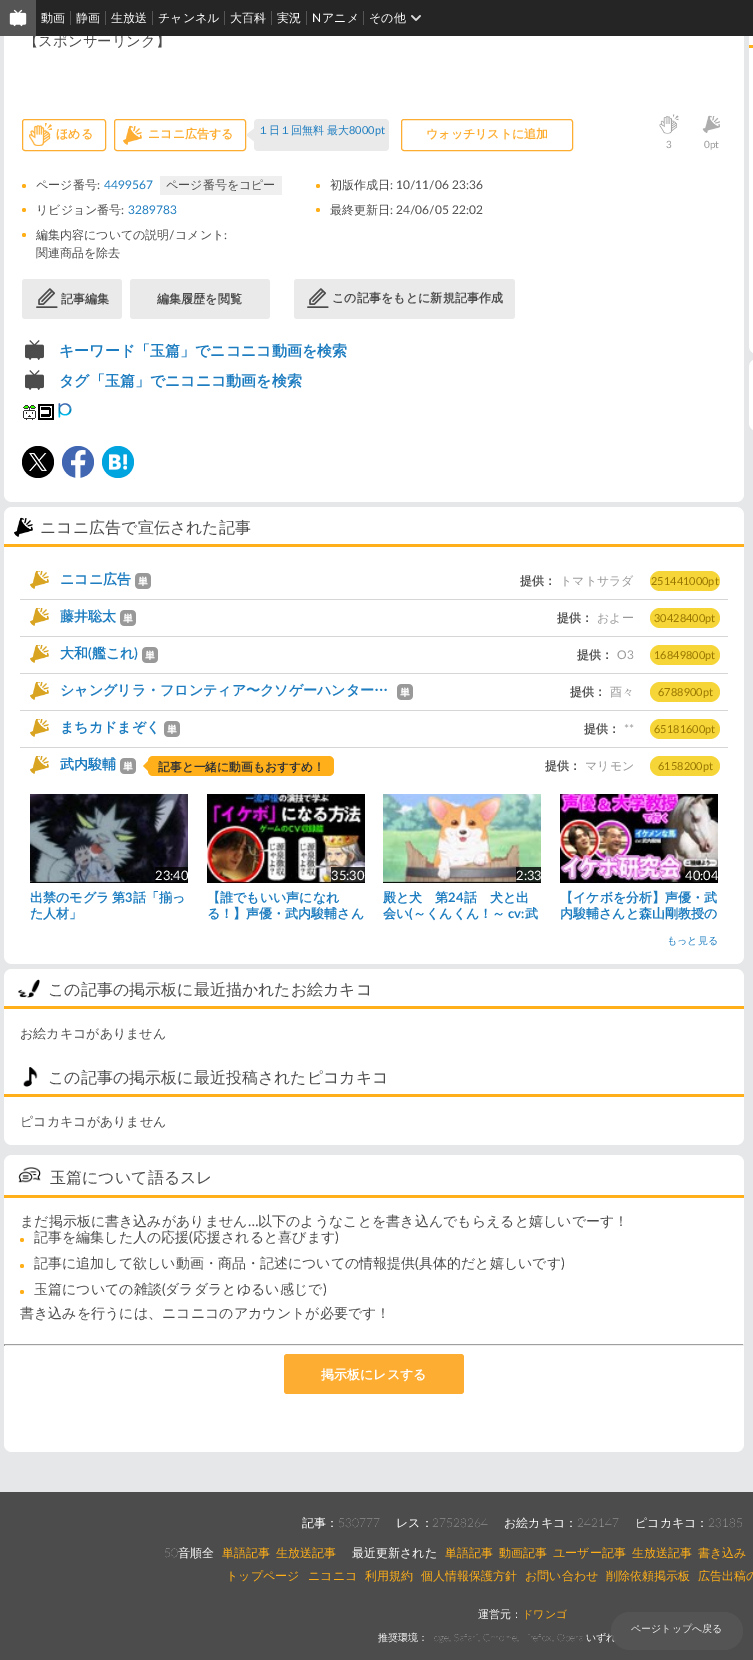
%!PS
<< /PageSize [753 1660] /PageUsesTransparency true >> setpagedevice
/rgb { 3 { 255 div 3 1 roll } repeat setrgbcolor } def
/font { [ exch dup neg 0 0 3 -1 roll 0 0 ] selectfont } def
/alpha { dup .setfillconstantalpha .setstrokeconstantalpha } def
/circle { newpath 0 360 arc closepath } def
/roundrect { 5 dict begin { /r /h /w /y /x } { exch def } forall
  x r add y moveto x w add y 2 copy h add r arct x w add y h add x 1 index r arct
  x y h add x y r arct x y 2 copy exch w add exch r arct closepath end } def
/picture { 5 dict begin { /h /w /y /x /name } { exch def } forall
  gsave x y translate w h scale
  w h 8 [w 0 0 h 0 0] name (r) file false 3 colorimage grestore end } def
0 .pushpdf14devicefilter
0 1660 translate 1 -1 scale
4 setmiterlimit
230 231 232 rgb
0 0 753 1660 rectfill
255 255 255 rgb
4 -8 moveto 744 -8 lineto 744 494 lineto 744 498.5 740.5 502 736 502 curveto 12 502 lineto 7.5 502 4 498.5 4 494 curveto closepath fill
253 174 50 rgb
22.5 119.5 83 31 2.5 roundrect stroke
(img/3.rgb) 29 123 23 23 picture
114.5 119.5 131 31 2.5 roundrect stroke
(img/4.rgb) 123 125 19 20 picture
234 234 234 rgb
254 119 135 32 4 roundrect fill
256 127 moveto 256 143 lineto 246 135 lineto closepath fill
253 174 50 rgb
401.5 119.5 171 31 2.5 roundrect stroke
(img/5.rgb) 659 114 20 20 picture
(img/6.rgb) 702 115 18 18 picture
255 175 25 rgb
24 186 2 circle fill
239 239 239 rgb
160 176 122 19 rectfill
255 175 25 rgb
318 186 2 circle fill
24 210 2 circle fill
318 210 2 circle fill
24 235 2 circle fill
234 234 234 rgb
22 279 100 40 3 roundrect fill
(img/7.rgb) 36 288 22 20 picture
130 279 140 40 3 roundrect fill
294 279 221 40 3 roundrect fill
(img/7.rgb) 307 288 22 20 picture
(img/8.rgb) 25 340 19 20 picture
(img/8.rgb) 25 370 19 20 picture
(img/9.rgb) 23 405 13 15 picture
(img/10.rgb) 38 404 16 16 picture
(img/11.rgb) 58 403 14 15 picture
0 0 0 rgb
38 462 16 circle fill
(img/12.rgb) 29 453 18 18 picture
66 103 178 rgb
78 462 16 circle fill
(img/13.rgb) 71 450 15 28 picture
0 164 222 rgb
118 462 16 circle fill
(img/14.rgb) 109 454 18 16 picture
255 255 255 rgb
4 507 740 457 8 roundrect fill
255 175 25 rgb
4 544 740 3 rectfill
(img/15.rgb) 14 517 19 20 picture
214 214 214 rgb
20 599 708 1 rectfill
(img/16.rgb) 30 571 19 18 picture
(img/17.rgb) 135 573 16 16 picture
246 213 56 rgb
650 571 70 20 10 roundrect fill
214 214 214 rgb
20 636 708 1 rectfill
(img/16.rgb) 30 608 19 18 picture
(img/17.rgb) 120 610 16 16 picture
246 213 56 rgb
650 608 70 20 10 roundrect fill
214 214 214 rgb
20 673 708 1 rectfill
(img/16.rgb) 30 645 19 18 picture
(img/17.rgb) 142 647 16 16 picture
246 213 56 rgb
650 645 70 20 10 roundrect fill
214 214 214 rgb
20 710 708 1 rectfill
(img/16.rgb) 30 682 19 18 picture
(img/17.rgb) 397 684 16 16 picture
246 213 56 rgb
650 682 70 20 10 roundrect fill
214 214 214 rgb
20 747 708 1 rectfill
(img/16.rgb) 30 719 19 18 picture
(img/17.rgb) 164 721 16 16 picture
246 213 56 rgb
650 719 70 20 10 roundrect fill
(img/16.rgb) 30 756 19 18 picture
(img/17.rgb) 120 758 16 16 picture
255 175 25 rgb
148 756 186 20 5 roundrect fill
148 761 moveto 148 771 lineto 143 766 lineto closepath fill
246 213 56 rgb
650 756 70 20 10 roundrect fill
(img/18.rgb) 30 794 158 89 picture
0.8 alpha
0 0 0 rgb
155 867 33 16 rectfill
1 alpha
(img/19.rgb) 207 794 158 89 picture
0.8 alpha
331 867 34 16 rectfill
1 alpha
(img/20.rgb) 383 794 158 89 picture
0.8 alpha
516 867 25 16 rectfill
1 alpha
(img/21.rgb) 560 794 158 89 picture
0.8 alpha
685 867 33 16 rectfill
1 alpha
255 255 255 rgb
12 969 moveto 736 969 lineto 740.5 969 744 972.5 744 977 curveto 744 1057 lineto 4 1057 lineto 4 977 lineto 4 972.5 7.5 969 12 969 curveto closepath fill
255 175 25 rgb
4 1006 740 3 rectfill
(img/22.rgb) 18 979 22 19 picture
255 255 255 rgb
4 1057 moveto 744 1057 lineto 744 1137 lineto 744 1141.5 740.5 1145 736 1145 curveto 12 1145 lineto 7.5 1145 4 1141.5 4 1137 curveto closepath fill
255 175 25 rgb
4 1094 740 3 rectfill
(img/23.rgb) 23 1067 15 20 picture
255 255 255 rgb
12 1155 moveto 736 1155 lineto 740.5 1155 744 1158.5 744 1163 curveto 744 1198 lineto 4 1198 lineto 4 1163 lineto 4 1158.5 7.5 1155 12 1155 curveto closepath fill
255 175 25 rgb
4 1195 740 3 rectfill
(img/24.rgb) 18 1167 23 16 picture
255 255 255 rgb
4 1198 740 196 rectfill
255 175 25 rgb
22 1240 2 circle fill
22 1266 2 circle fill
22 1292 2 circle fill
[
  [4 1344 740 1 159 159 159]
  [743 1344 1 2 238 238 238]
  [4 1345 740 1 238 238 238]
  [4 1344 1 2 159 159 159]
] { aload pop rgb rectfill } forall
253 174 50 rgb
284 1354 180 40 3 roundrect fill
255 255 255 rgb
4 1394 moveto 744 1394 lineto 744 1444 lineto 744 1448.5 740.5 1452 736 1452 curveto 12 1452 lineto 7.5 1452 4 1448.5 4 1444 curveto closepath fill
749 8 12 346 8 roundrect fill
255 175 25 rgb
749 45 4 3 rectfill
255 255 255 rgb
749 359 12 72 8 roundrect fill
76 76 76 rgb
0 1492 753 168 rectfill
/WenQuanYiZenHei-Medium 14.4 font
24 46 moveto (【スポンサーリンク】) show
37 37 37 rgb
36 0 717 36 rectfill
(img/2.rgb) 411 15 10 6 picture
/WenQuanYiZenHei-Medium 12 font
255 255 255 rgb
369 22 moveto (その他) show
85 85 85 rgb
363 11 1 14 rectfill
255 255 255 rgb
322 22 moveto (アニメ) show
/Lato-Regular 12 font
312 22 moveto (N) show
85 85 85 rgb
306 11 1 14 rectfill
/WenQuanYiZenHei-Medium 12 font
255 255 255 rgb
277 22 moveto (実況) show
85 85 85 rgb
271 11 1 14 rectfill
255 255 255 rgb
230 22 moveto (大百科) show
85 85 85 rgb
224 11 1 14 rectfill
255 255 255 rgb
158 22 moveto (チャンネル) show
85 85 85 rgb
152 11 1 14 rectfill
255 255 255 rgb
111 22 moveto (生放送) show
85 85 85 rgb
105 11 1 14 rectfill
255 255 255 rgb
76 22 moveto (静画) show
85 85 85 rgb
70 11 1 14 rectfill
255 255 255 rgb
41 22 moveto (動画) show
85 85 85 rgb
0 0 36 36 rectfill
(img/1.rgb) 9 9 18 18 picture
/WenQuanYiZenHei-Bold 12 font
253 174 50 rgb
56 138 moveto (ほめる) show
148 138 moveto (ニコニ広告する) show
/WenQuanYiZenHei-Medium 11 font
30 125 192 rgb
258 134 moveto (１日１回無料 最大) show
/Lato-Regular 11 font
349 134 moveto (8000pt) show
/WenQuanYiZenHei-Bold 12 font
253 174 50 rgb
426 138 moveto (ウォッチリストに追加) show
/Lato-Regular 10 font
153 153 153 rgb
666 148 moveto (3) show
704 148 moveto (0pt) show
/WenQuanYiZenHei-Medium 12 font
76 76 76 rgb
36 189 moveto (ページ番号) show
/Lato-Regular 12 font
97 189 moveto (:) show
30 125 192 rgb
104 189 moveto (4499567) show
/WenQuanYiZenHei-Medium 12 font
76 76 76 rgb
166 189 moveto (ページ番号をコピー) show
330 189 moveto (初版作成日) show
/Lato-Regular 12 font
390 189 moveto (: 10/11/06 23:36) show
/WenQuanYiZenHei-Medium 12 font
36 214 moveto (リビジョン番号) show
/Lato-Regular 12 font
121 214 moveto (:) show
30 125 192 rgb
128 214 moveto (3289783) show
/WenQuanYiZenHei-Medium 12 font
76 76 76 rgb
330 214 moveto (最終更新日) show
/Lato-Regular 12 font
390 214 moveto (: 24/06/05 22:02) show
/WenQuanYiZenHei-Medium 12 font
36 239 moveto (編集内容についての説明) show
/Lato-Regular 12 font
169 239 moveto (/) show
/WenQuanYiZenHei-Medium 12 font
175 239 moveto (コメント) show
/Lato-Regular 12 font
224 239 moveto (:) show
/WenQuanYiZenHei-Medium 12 font
36 257 moveto (関連商品を除去) show
/WenQuanYiZenHei-Bold 12 font
61 303 moveto 0.1 0 (記事編集) ashow
157 303 moveto 0.1 0 (編集履歴を閲覧) ashow
332 302 moveto 0.1 0 (この記事をもとに新規記事作成) ashow
/WenQuanYiZenHei-Bold 15 font
30 125 192 rgb
59 356 moveto (キーワード「玉篇」でニコニコ動画を検索) show
59 386 moveto (タグ「玉篇」でニコニコ動画を検索) show
/WenQuanYiZenHei-Medium 16 font
76 76 76 rgb
40 533 moveto (ニコニ広告で宣伝された記事) show
/WenQuanYiZenHei-Bold 14 font
30 125 192 rgb
60 584 moveto (ニコニ広告) show
/WenQuanYiZenHei-Bold 12 font
82 82 82 rgb
520 585 moveto (提供：) show
/WenQuanYiZenHei-Medium 12 font
153 153 153 rgb
560 585 moveto (トマトサラダ) show
/Lato-Regular 11 font
152 118 0 rgb
651 585 moveto (251441000pt) show
/WenQuanYiZenHei-Bold 14 font
30 125 192 rgb
60 621 moveto (藤井聡太) show
/WenQuanYiZenHei-Bold 12 font
82 82 82 rgb
557 622 moveto (提供：) show
/WenQuanYiZenHei-Medium 12 font
153 153 153 rgb
597 622 moveto (およー) show
/Lato-Regular 11 font
152 118 0 rgb
654 622 moveto (30428400pt) show
/WenQuanYiZenHei-Bold 14 font
30 125 192 rgb
60 658 moveto (大和) show
/Lato-SemiBold 14 font
88 658 moveto (\() show
/WenQuanYiZenHei-Bold 14 font
92 658 moveto (艦これ) show
/Lato-SemiBold 14 font
134 658 moveto (\)) show
/WenQuanYiZenHei-Bold 12 font
82 82 82 rgb
577 659 moveto (提供：) show
/Lato-Regular 12 font
153 153 153 rgb
617 659 moveto (O3) show
/Lato-Regular 11 font
152 118 0 rgb
654 659 moveto (16849800pt) show
/WenQuanYiZenHei-Bold 14 font
30 125 192 rgb
60 695 moveto (シャングリラ・フロンティア〜クソゲーハンター…) show
/WenQuanYiZenHei-Bold 12 font
82 82 82 rgb
570 696 moveto (提供：) show
/WenQuanYiZenHei-Medium 12 font
153 153 153 rgb
610 696 moveto (酉々) show
/Lato-Regular 11 font
152 118 0 rgb
658 696 moveto (6788900pt) show
/WenQuanYiZenHei-Bold 14 font
30 125 192 rgb
60 732 moveto (まちカドまぞく) show
/WenQuanYiZenHei-Bold 12 font
82 82 82 rgb
584 733 moveto (提供：) show
/Lato-Regular 12 font
153 153 153 rgb
624 733 moveto (**) show
/Lato-Regular 11 font
152 118 0 rgb
654 733 moveto (65181600pt) show
/WenQuanYiZenHei-Bold 14 font
30 125 192 rgb
60 769 moveto (武内駿輔) show
/WenQuanYiZenHei-Bold 11.75 font
51 51 51 rgb
158 771 moveto (記事と一緒に動画もおすすめ！) show
/WenQuanYiZenHei-Bold 12 font
82 82 82 rgb
545 770 moveto (提供：) show
/WenQuanYiZenHei-Medium 12 font
153 153 153 rgb
585 770 moveto (マリモン) show
/Lato-Regular 11 font
152 118 0 rgb
658 770 moveto (6158200pt) show
/Lato-Regular 13 font
255 255 255 rgb
155 880 moveto (23:40) show
/WenQuanYiZenHei-Bold 13 font
30 125 192 rgb
30 902 moveto -1 0 32 (出禁のモグラ 第) widthshow
/Lato-Bold 13 font
125 902 moveto (3) show
/WenQuanYiZenHei-Bold 13 font
133 902 moveto (話「揃っ) show
30 918 moveto (た人材」) show
/Lato-Regular 13 font
255 255 255 rgb
331 880 moveto (35:30) show
/WenQuanYiZenHei-Bold 13 font
30 125 192 rgb
207 902 moveto (【誰でもいい声になれ) show
207 918 moveto (る！】声優・武内駿輔さん) show
/Lato-Regular 13 font
255 255 255 rgb
516 880 moveto (2:33) show
/WenQuanYiZenHei-Bold 13 font
30 125 192 rgb
383 902 moveto (殿と犬　第) show
/Lato-Bold 13 font
448 902 moveto (24) show
/WenQuanYiZenHei-Bold 13 font
464 902 moveto (話　犬と出) show
383 918 moveto (会い) show
/Lato-Bold 13 font
409 918 moveto (\() show
/WenQuanYiZenHei-Bold 13 font
413 918 moveto (～くんくん！～) show
/Lato-Bold 13 font
508 918 moveto (cv:) show
/WenQuanYiZenHei-Bold 13 font
525 918 moveto (武) show
/Lato-Regular 13 font
255 255 255 rgb
685 880 moveto (40:04) show
/WenQuanYiZenHei-Bold 13 font
30 125 192 rgb
560 902 moveto (【イケボを分析】声優・武) show
560 918 moveto (内駿輔さんと森山剛教授の) show
/WenQuanYiZenHei-Medium 10 font
667 944 moveto (もっと見る) show
/WenQuanYiZenHei-Medium 16 font
76 76 76 rgb
48 995 moveto (この記事の掲示板に最近描かれたお絵カキコ) show
/WenQuanYiZenHei-Medium 13 font
20 1038 moveto (お絵カキコがありません) show
/WenQuanYiZenHei-Medium 16 font
48 1083 moveto (この記事の掲示板に最近投稿されたピコカキコ) show
/WenQuanYiZenHei-Medium 13 font
20 1126 moveto (ピコカキコがありません) show
/WenQuanYiZenHei-Medium 16 font
50 1183 moveto (玉篇について語るスレ) show
/WenQuanYiZenHei-Medium 14 font
20 1226 moveto (まだ掲示板に書き込みがありません) show
/Lato-Medium 14 font
248 1226 moveto (…) show
/WenQuanYiZenHei-Medium 14 font
258 1226 moveto (以下のようなことを書き込んでもらえると嬉しいでーす！) show
34 1242 moveto (記事を編集した人の応援) show
/Lato-Regular 14 font
189 1242 moveto (\() show
/WenQuanYiZenHei-Medium 14 font
193 1242 moveto (応援されると喜びます) show
/Lato-Regular 14 font
335 1242 moveto (\)) show
/WenQuanYiZenHei-Medium 14 font
34 1268 moveto (記事に追加して欲しい動画・商品・記述についての情報提供) show
/Lato-Regular 14 font
415 1268 moveto (\() show
/WenQuanYiZenHei-Medium 14 font
419 1268 moveto (具体的だと嬉しいです) show
/Lato-Regular 14 font
561 1268 moveto (\)) show
/WenQuanYiZenHei-Medium 14 font
34 1294 moveto (玉篇についての雑談) show
/Lato-Regular 14 font
162 1294 moveto (\() show
/WenQuanYiZenHei-Medium 14 font
165 1294 moveto (ダラダラとゆるい感じで) show
/Lato-Regular 14 font
323 1294 moveto (\)) show
/WenQuanYiZenHei-Medium 14 font
20 1318 moveto (書き込みを行うには、ニコニコのアカウントが必要です！) show
/WenQuanYiZenHei-Bold 13 font
255 255 255 rgb
321 1379 moveto (掲示板にレスする) show
/WenQuanYiZenHei-Medium 12 font
302 1527 moveto (記事：) show
/Lato-ExtraLight 12 font
338 1527 moveto (530777) show
/WenQuanYiZenHei-Medium 12 font
396 1527 moveto (レス：) show
/Lato-ExtraLight 12 font
432 1527 moveto (27528264) show
/WenQuanYiZenHei-Medium 12 font
504 1527 moveto (お絵カキコ：) show
/Lato-ExtraLight 12 font
577 1527 moveto (242147) show
/WenQuanYiZenHei-Medium 12 font
635 1527 moveto (ピコカキコ：) show
/Lato-ExtraLight 12 font
708 1527 moveto (23185) show
164 1557 moveto (50) show
/WenQuanYiZenHei-Medium 12 font
178 1557 moveto (音順全) show
255 175 24 rgb
222 1557 moveto (単語記事) show
276 1557 moveto (生放送記事) show
255 255 255 rgb
352 1557 moveto (最近更新された) show
255 175 24 rgb
[
  [(単語記事) 445 1557]
  [(動画記事) 499 1557]
  [(ユーザー記事) 553 1557]
  [(生放送記事) 632 1557]
  [(書き込み) 698 1557]
  [(トップページ) 226 1580]
  [(ニコニコ) 308 1580]
  [(利用規約) 365 1580]
  [(個人情報保護方針) 421 1580]
  [(お問い合わせ) 525 1580]
  [(削除依頼掲示板) 606 1580]
  [(広告出稿の) 698 1580]
] { aload pop moveto show } forall
/WenQuanYiZenHei-Medium 11 font
255 255 255 rgb
478 1618 moveto (運営元：) show
255 175 24 rgb
522 1618 moveto (ドワンゴ) show
/WenQuanYiZenHei-Medium 10 font
255 255 255 rgb
378 1641 moveto (推奨環境：) show
/Lato-ExtraLight 10 font
428 1641 moveto (Edge, Safari, Chrome, Firefox, Opera) show
/WenQuanYiZenHei-Medium 10 font
586 1641 moveto (いずれ) show
0.9 alpha
85 85 85 rgb
611 1612 132 38 19 roundrect fill
1 alpha
238 238 238 rgb
631 1632 moveto (ページトップへ戻る) show
.poppdf14devicefilter showpage
